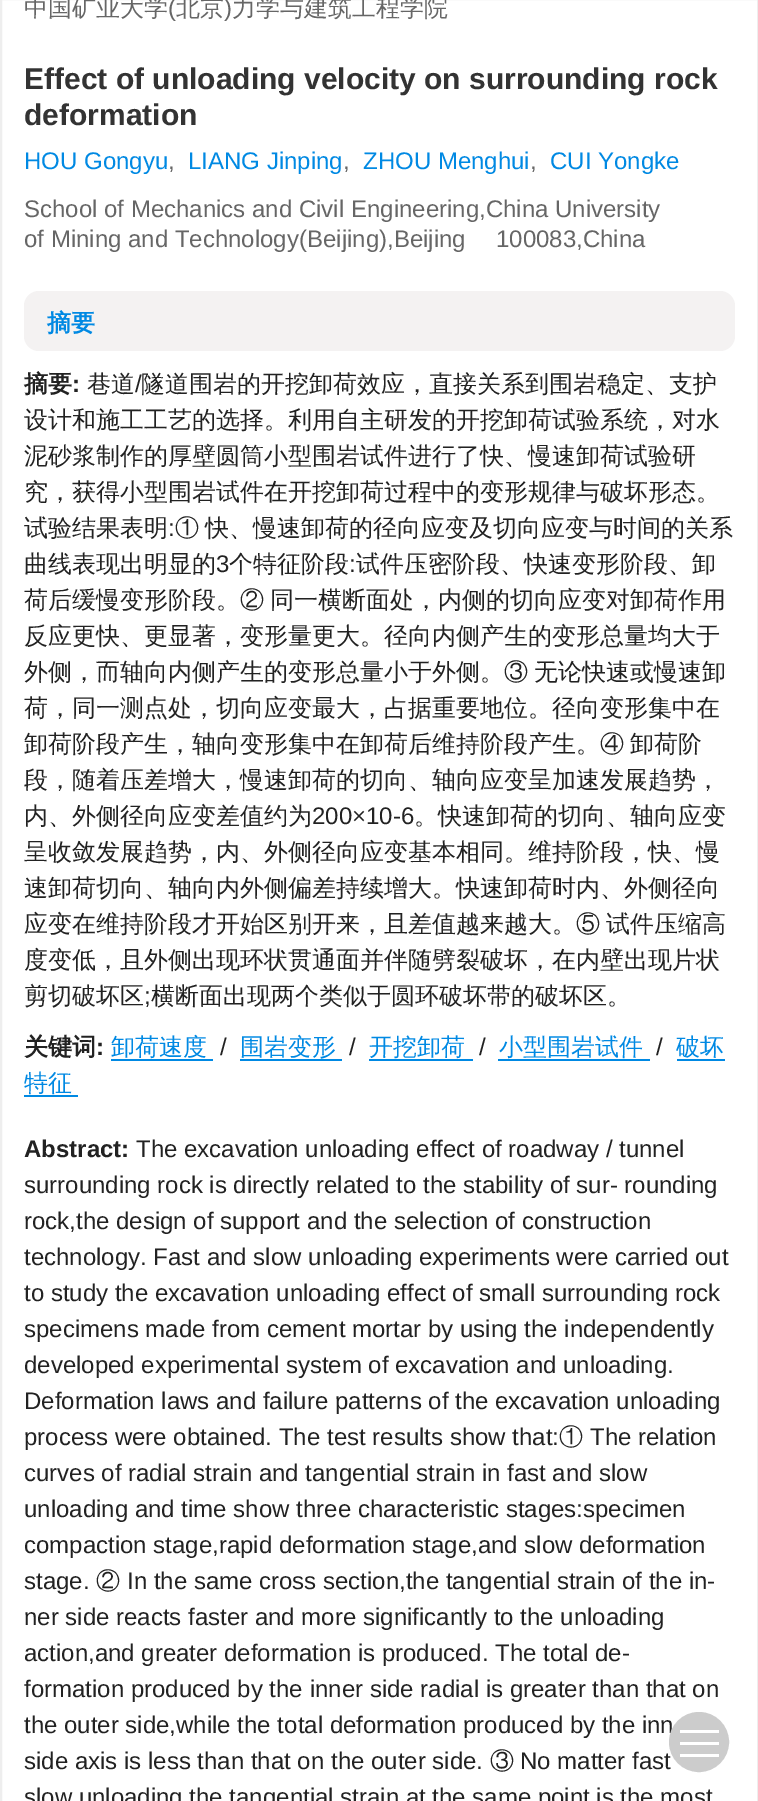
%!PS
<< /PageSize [758 1801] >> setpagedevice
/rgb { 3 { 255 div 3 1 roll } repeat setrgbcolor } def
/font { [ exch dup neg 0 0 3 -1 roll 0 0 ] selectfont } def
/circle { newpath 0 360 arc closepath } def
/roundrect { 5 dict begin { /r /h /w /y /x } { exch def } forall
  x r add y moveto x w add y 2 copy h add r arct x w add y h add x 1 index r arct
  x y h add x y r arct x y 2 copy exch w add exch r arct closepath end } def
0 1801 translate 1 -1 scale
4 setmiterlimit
255 255 255 rgb
0 0 758 1801 rectfill
238 238 238 rgb
2 setlinewidth
1 -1 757 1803 rectstroke
244 242 242 rgb
24 291 711 60 15 roundrect fill
[
  [111 1059 102 2 0 137 227]
  [240 1059 102 2 0 137 227]
  [369 1059 104 2 0 137 227]
  [498 1059 152 2 0 137 227]
  [677 1059 48 2 0 137 227]
  [24 1095 54 2 0 137 227]
] { aload pop rgb rectfill } forall
/WenQuanYiZenHei-Medium 24 font
102 102 102 rgb
24 16 moveto (中国矿业大学) show
/LiberationSans-Regular 24 font
168 16 moveto (\() show
/WenQuanYiZenHei-Medium 24 font
176 16 moveto (北京) show
/LiberationSans-Regular 24 font
224 16 moveto (\)) show
/WenQuanYiZenHei-Medium 24 font
232 16 moveto (力学与建筑工程学院) show
/LiberationSans-Bold 30 font
51 51 51 rgb
24 89 moveto (Effect of unloading velocity on surrounding rock) show
24 125 moveto (deformation) show
/LiberationSans-Regular 24 font
0 137 227 rgb
24 169 moveto (HOU Gongyu) show
102 102 102 rgb
168 169 moveto (,) show
0 137 227 rgb
188 169 moveto (LIANG Jinping) show
102 102 102 rgb
343 169 moveto (,) show
0 137 227 rgb
363 169 moveto (ZHOU Menghui) show
102 102 102 rgb
530 169 moveto (,) show
0 137 227 rgb
550 169 moveto (CUI Yongke) show
102 102 102 rgb
[
  [(School of Mechanics and Civil Engineering,China University) 24 217]
  [(of Mining and Technology\(Beijing\),Beijing) 24 247]
  [(100083,China) 496 247]
] { aload pop moveto show } forall
/WenQuanYiZenHei-Bold 24 font
0 137 227 rgb
47 331 moveto (摘要) show
34 34 34 rgb
24 392 moveto (摘要) show
/LiberationSans-Bold 24 font
72 392 moveto (:) show
/WenQuanYiZenHei-Medium 24 font
87 392 moveto (巷道) show
/LiberationSans-Regular 24 font
135 392 moveto (/) show
/WenQuanYiZenHei-Medium 24 font
[
  [(隧道围岩的开挖卸荷效应，直接关系到围岩稳定、支护) 141 392]
  [(设计和施工工艺的选择。利用自主研发的开挖卸荷试验系统，对水) 24 428]
  [(泥砂浆制作的厚壁圆筒小型围岩试件进行了快、慢速卸荷试验研) 24 464]
  [(究，获得小型围岩试件在开挖卸荷过程中的变形规律与破坏形态。) 24 500]
  [(试验结果表明) 24 536]
] { aload pop moveto show } forall
/LiberationSans-Regular 24 font
168 536 moveto (:) show
/WenQuanYiZenHei-Medium 24 font
175 536 moveto -1 0 32 (① 快、慢速卸荷的径向应变及切向应变与时间的关系) widthshow
24 572 moveto (曲线表现出明显的) show
/LiberationSans-Regular 24 font
216 572 moveto (3) show
/WenQuanYiZenHei-Medium 24 font
229 572 moveto (个特征阶段) show
/LiberationSans-Regular 24 font
349 572 moveto (:) show
/WenQuanYiZenHei-Medium 24 font
356 572 moveto (试件压密阶段、快速变形阶段、卸) show
24 608 moveto -1 0 32 (荷后缓慢变形阶段。② 同一横断面处，内侧的切向应变对卸荷作用) widthshow
24 644 moveto (反应更快、更显著，变形量更大。径向内侧产生的变形总量均大于) show
24 680 moveto -1 0 32 (外侧，而轴向内侧产生的变形总量小于外侧。③ 无论快速或慢速卸) widthshow
24 716 moveto (荷，同一测点处，切向应变最大，占据重要地位。径向变形集中在) show
24 752 moveto -1 0 32 (卸荷阶段产生，轴向变形集中在卸荷后维持阶段产生。④ 卸荷阶) widthshow
24 788 moveto (段，随着压差增大，慢速卸荷的切向、轴向应变呈加速发展趋势，) show
24 824 moveto (内、外侧径向应变差值约为) show
/LiberationSans-Regular 24 font
312 824 moveto (200×10-6) show
/WenQuanYiZenHei-Medium 24 font
[
  [(。快速卸荷的切向、轴向应变) 414 824]
  [(呈收敛发展趋势，内、外侧径向应变基本相同。维持阶段，快、慢) 24 860]
  [(速卸荷切向、轴向内外侧偏差持续增大。快速卸荷时内、外侧径向) 24 896]
] { aload pop moveto show } forall
24 932 moveto -1 0 32 (应变在维持阶段才开始区别开来，且差值越来越大。⑤ 试件压缩高) widthshow
24 968 moveto (度变低，且外侧出现环状贯通面并伴随劈裂破坏，在内壁出现片状) show
24 1004 moveto (剪切破坏区) show
/LiberationSans-Regular 24 font
144 1004 moveto (;) show
/WenQuanYiZenHei-Medium 24 font
151 1004 moveto (横断面出现两个类似于圆环破坏带的破坏区。) show
/WenQuanYiZenHei-Bold 24 font
24 1055 moveto (关键词) show
/LiberationSans-Bold 24 font
96 1055 moveto (:) show
/WenQuanYiZenHei-Medium 24 font
0 137 227 rgb
111 1055 moveto (卸荷速度) show
/LiberationSans-Regular 24 font
34 34 34 rgb
220 1055 moveto (/) show
/WenQuanYiZenHei-Medium 24 font
0 137 227 rgb
240 1055 moveto (围岩变形) show
/LiberationSans-Regular 24 font
34 34 34 rgb
349 1055 moveto (/) show
/WenQuanYiZenHei-Medium 24 font
0 137 227 rgb
369 1055 moveto (开挖卸荷) show
/LiberationSans-Regular 24 font
34 34 34 rgb
479 1055 moveto (/) show
/WenQuanYiZenHei-Medium 24 font
0 137 227 rgb
499 1055 moveto (小型围岩试件) show
/LiberationSans-Regular 24 font
34 34 34 rgb
656 1055 moveto (/) show
/WenQuanYiZenHei-Medium 24 font
0 137 227 rgb
676 1055 moveto (破坏) show
24 1091 moveto (特征) show
/LiberationSans-Bold 24 font
34 34 34 rgb
24 1157 moveto (Abstract:) show
/LiberationSans-Regular 24 font
[
  [(The excavation unloading effect of roadway / tunnel) 136 1157]
  [(surrounding rock is directly related to the stability of sur- rounding) 24 1193]
  [(rock,the design of support and the selection of construction) 24 1229]
  [(technology. Fast and slow unloading experiments were carried out) 24 1265]
  [(to study the excavation unloading effect of small surrounding rock) 24 1301]
  [(specimens made from cement mortar by using the independently) 24 1337]
  [(developed experimental system of excavation and unloading.) 24 1373]
  [(Deformation laws and failure patterns of the excavation unloading) 24 1409]
  [(process were obtained. The test results show that:) 24 1445]
] { aload pop moveto show } forall
/WenQuanYiZenHei-Medium 24 font
559 1445 moveto (①) show
/LiberationSans-Regular 24 font
[
  [(The relation) 590 1445]
  [(curves of radial strain and tangential strain in fast and slow) 24 1481]
  [(unloading and time show three characteristic stages:specimen) 24 1517]
  [(compaction stage,rapid deformation stage,and slow deformation) 24 1553]
  [(stage.) 24 1589]
] { aload pop moveto show } forall
/WenQuanYiZenHei-Medium 24 font
96 1589 moveto (②) show
/LiberationSans-Regular 24 font
[
  [(In the same cross section,the tangential strain of the in-) 127 1589]
  [(ner side reacts faster and more significantly to the unloading) 24 1625]
  [(action,and greater deformation is produced. The total de-) 24 1661]
  [(formation produced by the inner side radial is greater than that on) 24 1697]
  [(the outer side,while the total deformation produced by the inn) 24 1733]
  [(side axis is less than that on the outer side.) 24 1769]
] { aload pop moveto show } forall
/WenQuanYiZenHei-Medium 24 font
490 1769 moveto (③) show
/LiberationSans-Regular 24 font
520 1769 moveto (No matter fast) show
24 1805 moveto (slow unloading,the tangential strain at the same point is the most) show
204 204 204 rgb
699 1742 29 circle gsave fill grestore
stroke
[
  [680 1730 39 3 255 255 255]
  [680 1742 39 3 255 255 255]
  [680 1754 39 3 255 255 255]
] { aload pop rgb rectfill } forall
showpage
